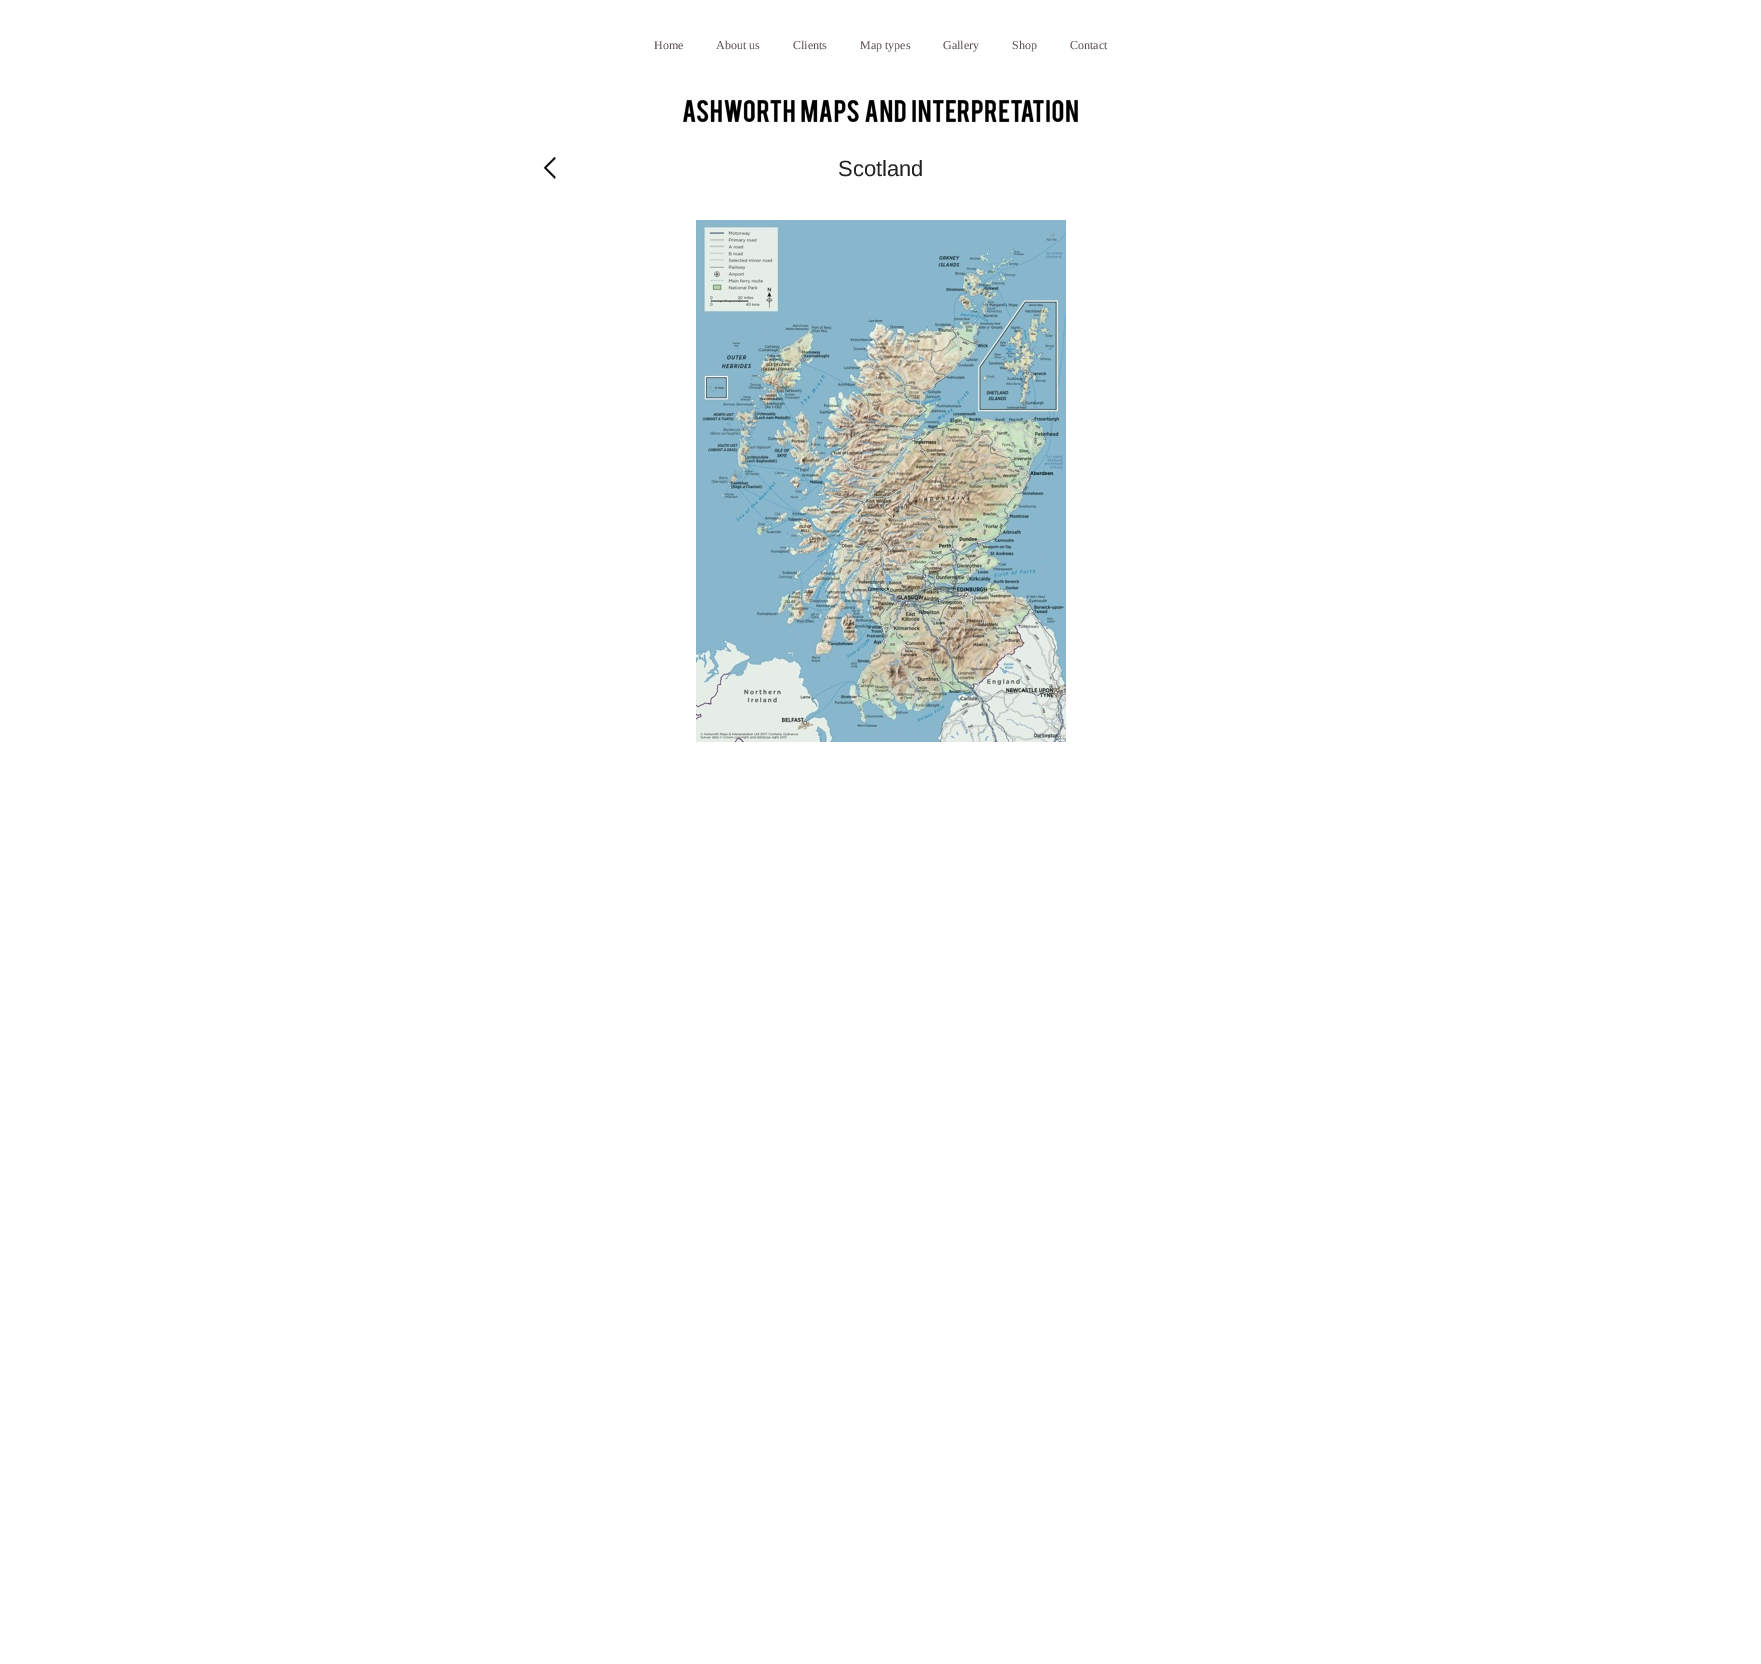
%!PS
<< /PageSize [1761 1664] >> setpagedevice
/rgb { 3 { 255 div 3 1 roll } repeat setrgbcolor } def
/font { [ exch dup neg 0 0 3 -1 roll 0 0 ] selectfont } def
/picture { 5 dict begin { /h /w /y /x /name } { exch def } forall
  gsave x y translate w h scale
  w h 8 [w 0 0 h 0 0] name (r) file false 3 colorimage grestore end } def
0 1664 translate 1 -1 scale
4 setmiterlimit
255 255 255 rgb
0 0 1761 1664 rectfill
(img/1.rgb) 683 99 395 24 picture
(img/2.rgb) 543 157 15 22 picture
(img/3.rgb) 696 220 370 522 picture
/LiberationSerif-Regular 12 font
88 77 77 rgb
[
  [(Home) 654 49]
  [(About us) 716 49]
  [(Clients) 793 49]
  [(Map types) 860 49]
  [(Gallery) 943 49]
  [(Shop) 1012 49]
  [(Contact) 1070 49]
] { aload pop moveto show } forall
/LiberationSans-Regular 22 font
34 34 34 rgb
838 176 moveto (Scotland) show
showpage
